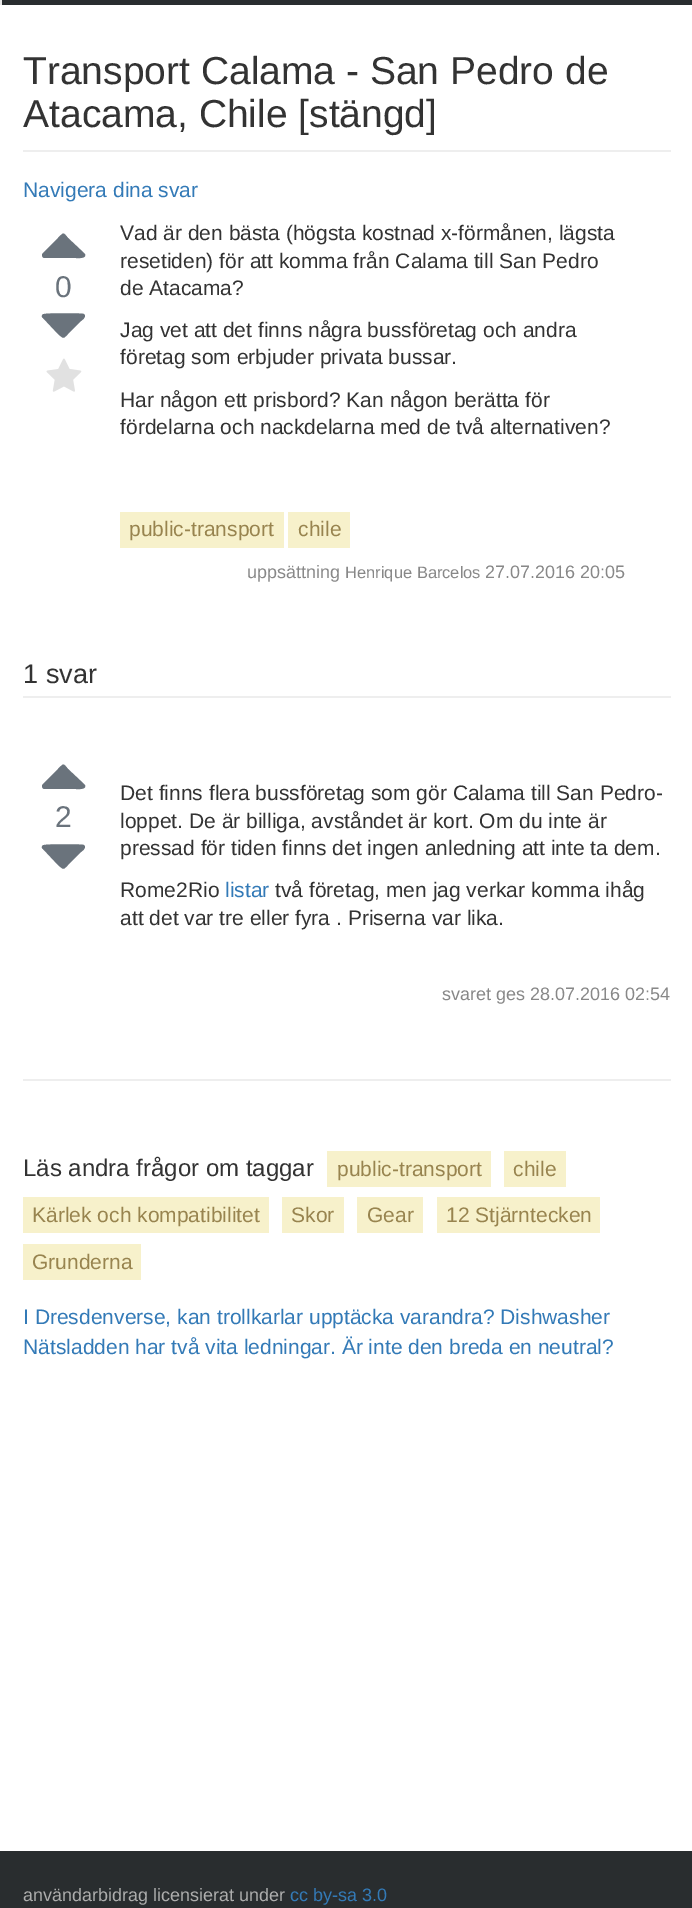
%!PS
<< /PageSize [692 1908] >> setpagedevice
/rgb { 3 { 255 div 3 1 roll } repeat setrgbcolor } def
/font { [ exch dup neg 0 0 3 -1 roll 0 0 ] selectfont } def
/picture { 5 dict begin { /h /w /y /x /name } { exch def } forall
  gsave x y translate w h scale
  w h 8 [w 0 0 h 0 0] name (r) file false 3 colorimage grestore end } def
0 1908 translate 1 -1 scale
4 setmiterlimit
255 255 255 rgb
0 0 692 1908 rectfill
[
  [0 0 692 5 41 45 47]
  [0 0 2 5 231 231 231]
  [23 150 648 2 238 238 238]
] { aload pop rgb rectfill } forall
106 115 124 rgb
84 253 moveto 85 254 lineto 87 259 77 258 76 258 curveto 44 258 lineto 42 257 41 255 43 253 curveto 58 238 lineto 64 232 63 232 68 238 curveto closepath fill
84 314 moveto 87 317 82 320 81 321 curveto 68 334 lineto 63 339 64 339 58 334 curveto 43 318 lineto 41 317 42 314 44 314 curveto 49 313 82 313 84 314 curveto closepath fill
(img/1.rgb) 46 358 36 34 picture
[
  [120 512 164 36 247 241 203]
  [288 512 62 36 247 241 203]
  [23 696 648 2 238 238 238]
  [23 1079 648 2 238 238 238]
] { aload pop rgb rectfill } forall
106 115 124 rgb
84 784 moveto 85 785 lineto 87 790 77 789 76 789 curveto 44 789 lineto 42 788 41 786 43 784 curveto 58 769 lineto 64 763 63 763 68 769 curveto closepath fill
84 845 moveto 87 848 82 851 81 852 curveto 68 865 lineto 63 870 64 870 58 865 curveto 43 849 lineto 41 848 42 845 44 845 curveto 49 844 82 844 84 845 curveto closepath fill
[
  [327 1151 164 36 247 241 203]
  [504 1151 62 36 247 241 203]
  [23 1197 246 36 247 241 203]
  [282 1197 62 36 247 241 203]
  [357 1197 66 36 247 241 203]
  [437 1197 163 36 247 241 203]
  [23 1244 118 36 247 241 203]
  [0 1851 692 57 41 45 47]
] { aload pop rgb rectfill } forall
/LiberationSans-Regular 39 font
51 51 51 rgb
23 84 moveto (Transport Calama - San Pedro de) show
23 127 moveto (Atacama, Chile [stängd]) show
/LiberationSans-Regular 21 font
51 122 183 rgb
23 197 moveto (Navigera dina svar) show
/LiberationSans-Regular 30 font
106 115 124 rgb
55 297 moveto (0) show
/LiberationSans-Regular 21 font
51 51 51 rgb
[
  [(Vad är den bästa \(högsta kostnad x-förmånen, lägsta) 120 240]
  [(resetiden\) för att komma från Calama till San Pedro) 120 268]
  [(de Atacama?) 120 295]
  [(Jag vet att det finns några bussföretag och andra) 120 337]
  [(företag som erbjuder privata bussar.) 120 364]
  [(Har någon ett prisbord? Kan någon berätta för) 120 407]
  [(fördelarna och nackdelarna med de två alternativen?) 120 434]
] { aload pop moveto show } forall
152 132 79 rgb
129 536 moveto (public-transport) show
298 536 moveto (chile) show
/LiberationSans-Regular 18 font
136 136 136 rgb
247 578 moveto (uppsättning) show
/LiberationSans-Regular 16.5 font
345 578 moveto (Henrique Barcelos) show
/LiberationSans-Regular 18 font
485 578 moveto (27.07.2016 20:05) show
/LiberationSans-Regular 27 font
51 51 51 rgb
23 683 moveto (1 svar) show
/LiberationSans-Regular 30 font
106 115 124 rgb
55 827 moveto (2) show
/LiberationSans-Regular 21 font
51 51 51 rgb
[
  [(Det finns flera bussföretag som gör Calama till San Pedro-) 120 800]
  [(loppet. De är billiga, avståndet är kort. Om du inte är) 120 828]
  [(pressad för tiden finns det ingen anledning att inte ta dem.) 120 855]
  [(Rome2Rio) 120 897]
] { aload pop moveto show } forall
51 122 183 rgb
225 897 moveto (listar) show
51 51 51 rgb
275 897 moveto (två företag, men jag verkar komma ihåg) show
120 925 moveto (att det var tre eller fyra . Priserna var lika.) show
/LiberationSans-Regular 18 font
136 136 136 rgb
442 1000 moveto (svaret ges 28.07.2016 02:54) show
/LiberationSans-Regular 24 font
51 51 51 rgb
23 1176 moveto (Läs andra frågor om taggar) show
/LiberationSans-Regular 21 font
152 132 79 rgb
[
  [(public-transport) 337 1176]
  [(chile) 513 1176]
  [(Kärlek och kompatibilitet) 32 1222]
  [(Skor) 291 1222]
  [(Gear) 367 1222]
  [(12 Stjärntecken) 446 1222]
  [(Grunderna) 32 1269]
] { aload pop moveto show } forall
51 122 183 rgb
23 1324 moveto (I Dresdenverse, kan trollkarlar upptäcka varandra? Dishwasher) show
23 1354 moveto (Nätsladden har två vita ledningar. Är inte den breda en neutral?) show
/LiberationSans-Regular 18 font
173 173 173 rgb
23 1901 moveto (användarbidrag licensierat under) show
51 122 183 rgb
290 1901 moveto (cc by-sa 3.0) show
showpage
